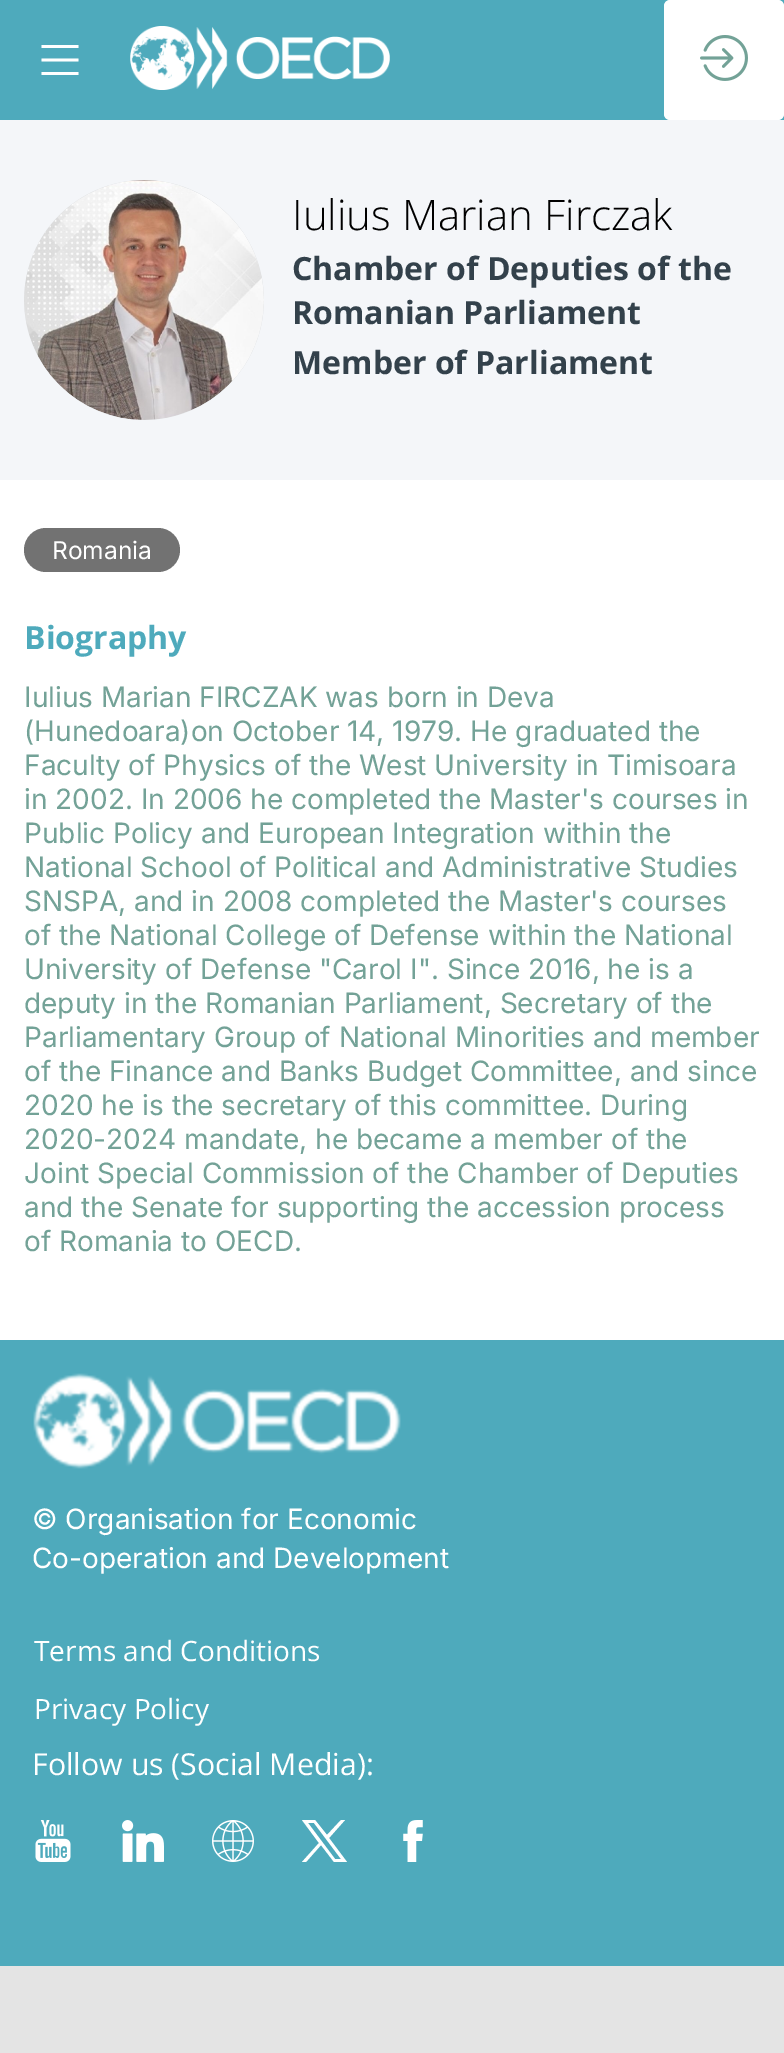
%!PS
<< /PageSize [784 2053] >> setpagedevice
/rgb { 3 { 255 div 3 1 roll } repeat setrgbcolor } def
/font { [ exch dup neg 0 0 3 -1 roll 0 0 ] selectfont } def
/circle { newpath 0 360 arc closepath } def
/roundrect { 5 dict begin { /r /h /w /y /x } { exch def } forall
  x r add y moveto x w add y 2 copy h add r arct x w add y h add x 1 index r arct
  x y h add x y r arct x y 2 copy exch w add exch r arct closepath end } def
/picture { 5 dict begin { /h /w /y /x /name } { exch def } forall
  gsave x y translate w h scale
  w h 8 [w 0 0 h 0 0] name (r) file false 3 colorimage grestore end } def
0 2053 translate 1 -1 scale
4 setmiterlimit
228 228 228 rgb
0 0 784 2053 rectfill
78 170 188 rgb
0 0 784 120 rectfill
255 255 255 rgb
41.5 45 moveto 78.5 45 lineto 78.5 48 lineto 41.5 48 lineto closepath 41.5 58.5 moveto 78.5 58.5 lineto 78.5 61.5 lineto 41.5 61.5 lineto closepath 41.5 72 moveto 78.5 72 lineto 78.5 75 lineto 41.5 75 lineto closepath fill
(img/1.rgb) 130 26 260 64 picture
665 1 118 118 5 roundrect gsave fill grestore
2 setlinewidth
stroke
(img/2.rgb) 700 35 48 46 picture
244 246 249 rgb
0 120 784 360 rectfill
225 227 229 rgb
144 300 120 circle fill
(img/3.rgb) 24 180 240 240 picture
255 255 255 rgb
0 480 784 860 rectfill
114 114 114 rgb
24 528 156 44 22 roundrect fill
78 170 188 rgb
0 1340 784 626 rectfill
(img/4.rgb) 33 1373 368 96 picture
(img/5.rgb) 35 1820 36 42 picture
(img/6.rgb) 122 1820 42 42 picture
(img/7.rgb) 212 1820 42 42 picture
255 255 255 rgb
302 1820 moveto 319 1843 lineto 302 1862 lineto 306 1862 lineto 321 1845 lineto 334 1862 lineto 347 1862 lineto 329 1838 lineto 345 1820 lineto 341 1820 lineto 327 1835 lineto 315 1820 lineto closepath 308 1823 moveto 314 1823 lineto 341 1859 lineto 335 1859 lineto closepath fill
(img/8.rgb) 403 1820 20 42 picture
/OpenSans-Light 42 font
0 0 0 rgb
292 230 moveto (Iulius Marian Firczak) show
/OpenSans-Bold 32 font
51 65 75 rgb
[
  [(Chamber of Deputies of the) 292 280]
  [(Romanian Parliament) 292 324]
  [(Member of Parliament) 292 374]
] { aload pop moveto show } forall
/Inter-Regular 24.5 font
255 255 255 rgb
52 559 moveto (Romania) show
/OpenSans-Bold 32 font
78 170 188 rgb
24 649 moveto (Biography) show
/Inter-Regular 28 font
115 162 151 rgb
[
  [(Iulius Marian FIRCZAK was born in Deva) 24 707]
  [(\(Hunedoara\)on October 14, 1979. He graduated the) 24 741]
  [(Faculty of Physics of the West University in Timisoara) 24 775]
  [(in 2002. In 2006 he completed the Master's courses in) 24 809]
  [(Public Policy and European Integration within the) 24 843]
  [(National School of Political and Administrative Studies) 24 877]
  [(SNSPA, and in 2008 completed the Master's courses) 24 911]
  [(of the National College of Defense within the National) 24 945]
  [(University of Defense "Carol I". Since 2016, he is a) 24 979]
  [(deputy in the Romanian Parliament, Secretary of the) 24 1013]
  [(Parliamentary Group of National Minorities and member) 24 1047]
  [(of the Finance and Banks Budget Committee, and since) 24 1081]
  [(2020 he is the secretary of this committee. During) 24 1115]
  [(2020-2024 mandate, he became a member of the) 24 1149]
  [(Joint Special Commission of the Chamber of Deputies) 24 1183]
  [(and the Senate for supporting the accession process) 24 1217]
  [(of Romania to OECD.) 24 1251]
] { aload pop moveto show } forall
255 255 255 rgb
32 1529 moveto (© Organisation for Economic) show
32 1568 moveto (Co-operation and Development) show
/OpenSans-Regular 28 font
34 1661 moveto (Terms and Conditions) show
34 1719 moveto (Privacy Policy) show
/OpenSans-Regular 30.25 font
32 1775 moveto (Follow us \(Social Media\):) show
showpage
